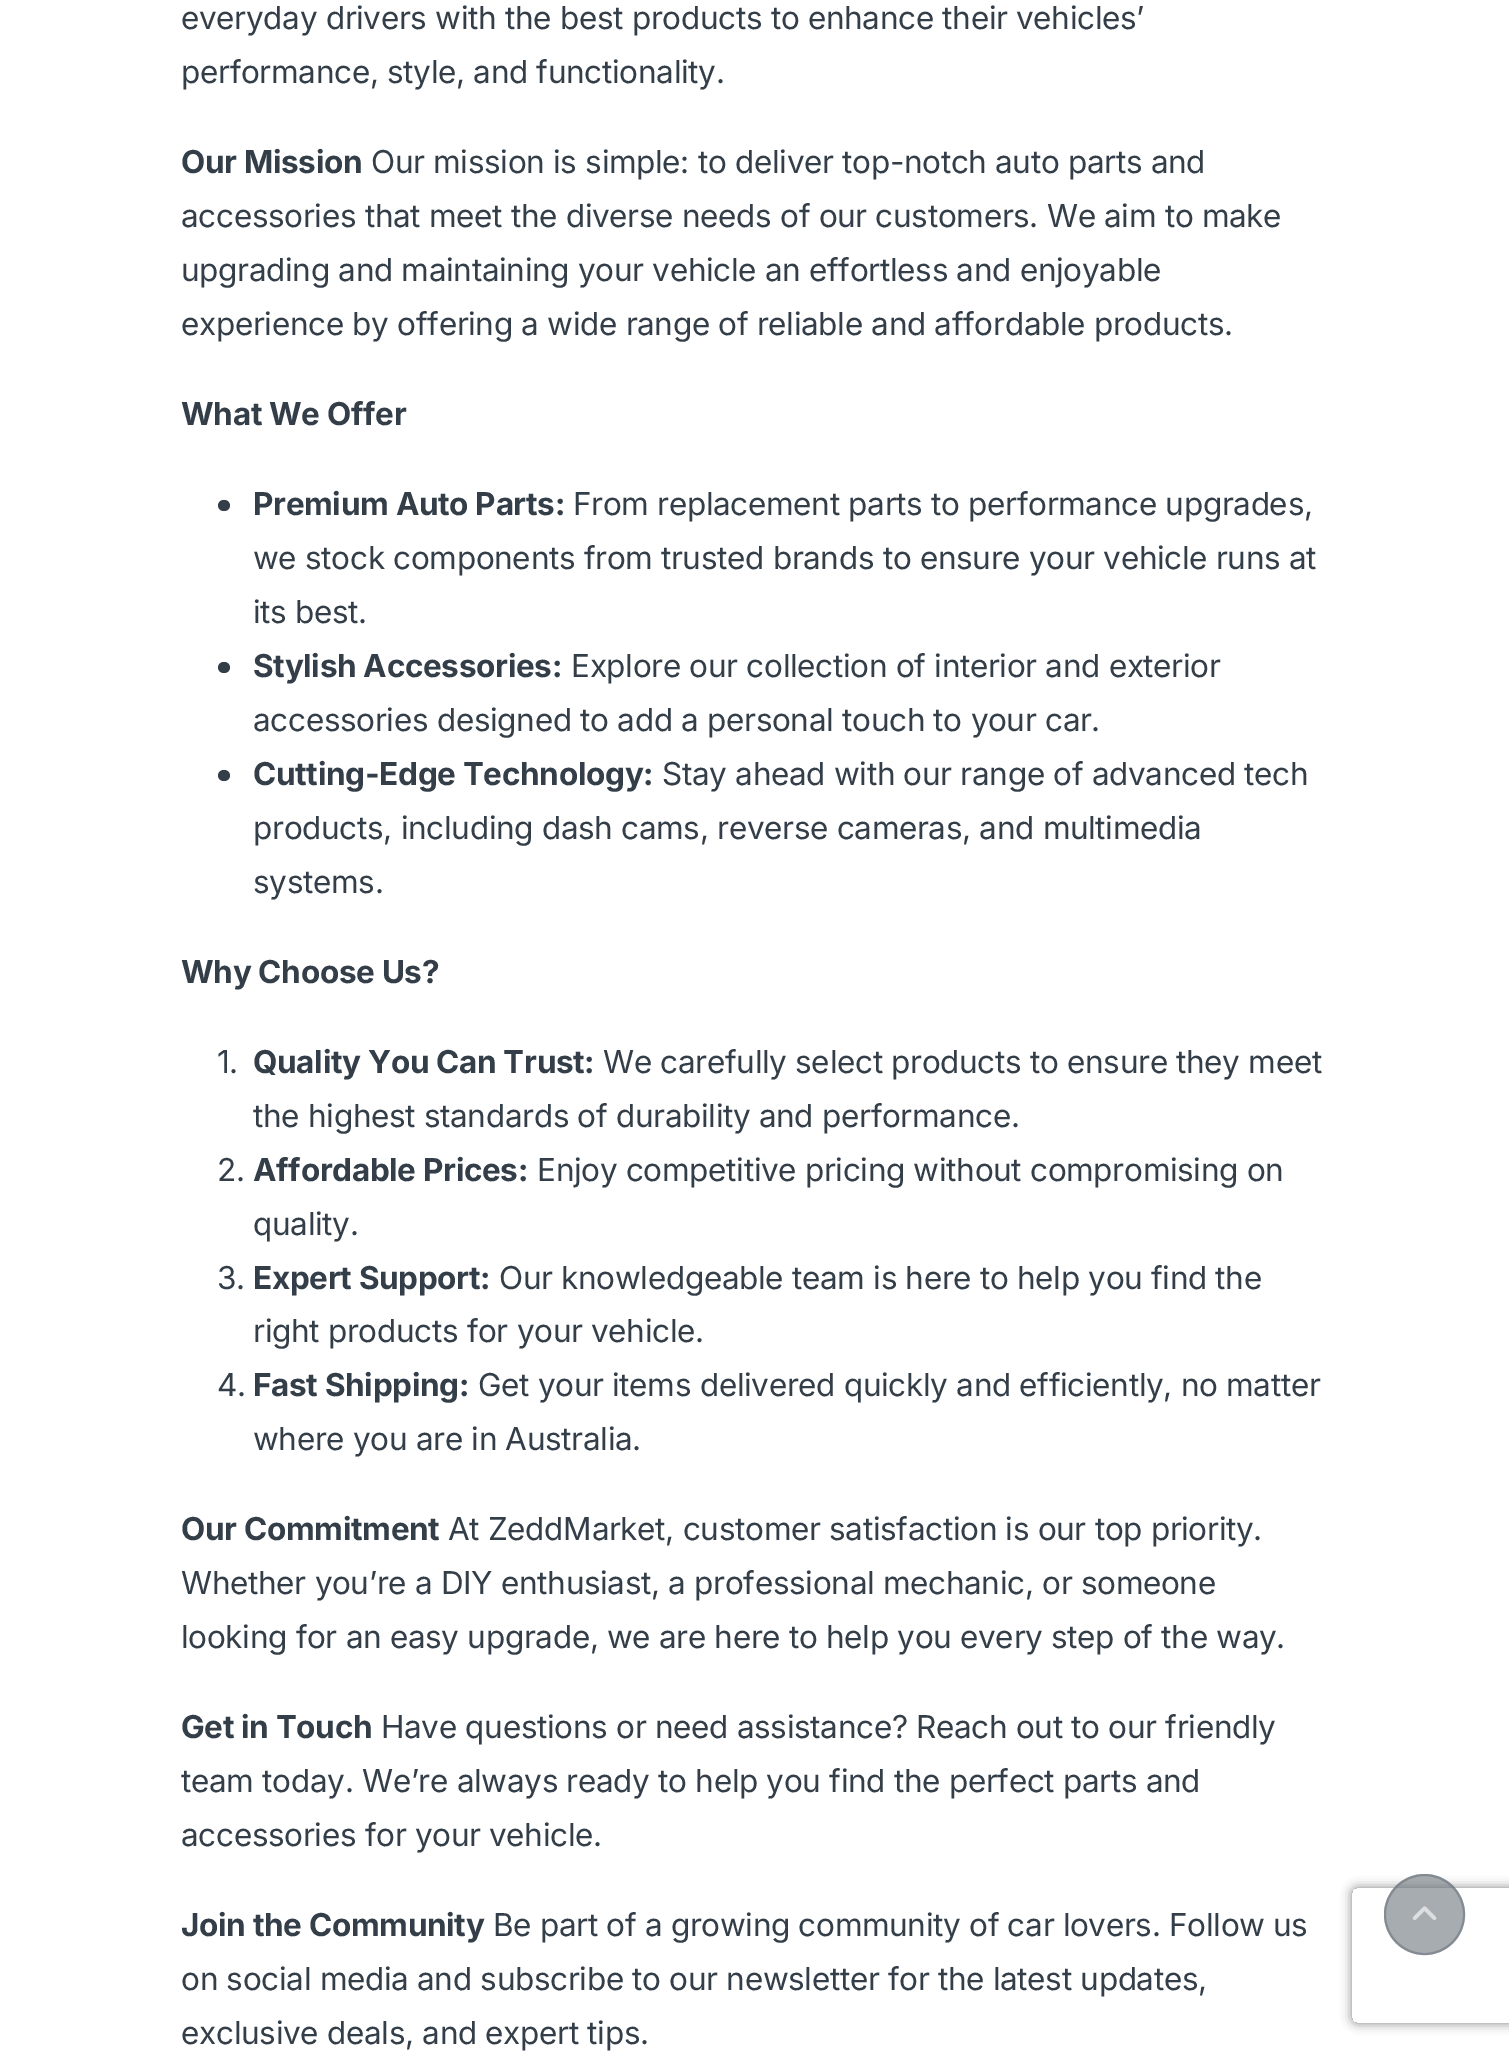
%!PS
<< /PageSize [1509 2054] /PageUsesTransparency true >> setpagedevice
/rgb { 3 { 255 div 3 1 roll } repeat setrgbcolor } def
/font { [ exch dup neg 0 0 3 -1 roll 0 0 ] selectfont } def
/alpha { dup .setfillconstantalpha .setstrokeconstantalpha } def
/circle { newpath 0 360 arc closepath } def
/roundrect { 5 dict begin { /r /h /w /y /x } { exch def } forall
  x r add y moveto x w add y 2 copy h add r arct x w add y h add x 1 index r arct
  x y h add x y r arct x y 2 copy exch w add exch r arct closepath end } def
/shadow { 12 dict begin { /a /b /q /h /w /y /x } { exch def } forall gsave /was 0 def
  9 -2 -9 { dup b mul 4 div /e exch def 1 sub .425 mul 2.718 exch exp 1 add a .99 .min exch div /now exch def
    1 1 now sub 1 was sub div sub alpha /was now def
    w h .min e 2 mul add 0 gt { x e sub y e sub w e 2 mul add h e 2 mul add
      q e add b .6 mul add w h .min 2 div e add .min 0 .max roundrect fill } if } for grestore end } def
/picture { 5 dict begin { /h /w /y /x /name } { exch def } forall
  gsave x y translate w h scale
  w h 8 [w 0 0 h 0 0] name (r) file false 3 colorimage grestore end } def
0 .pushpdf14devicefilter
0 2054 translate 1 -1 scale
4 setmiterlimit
255 255 255 rgb
0 0 1509 2054 rectfill
51 62 72 rgb
218 500 12 11 5.5 roundrect fill
218 662 12 11 5.5 roundrect fill
218 770 12 11 5.5 roundrect fill
gsave
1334 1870 moveto 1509 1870 lineto 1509 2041 lineto 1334 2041 lineto closepath 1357 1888 moveto 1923 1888 lineto 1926 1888 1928 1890 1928 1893 curveto 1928 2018 lineto 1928 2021 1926 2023 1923 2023 curveto 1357 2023 lineto 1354 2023 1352 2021 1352 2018 curveto 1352 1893 lineto 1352 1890 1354 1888 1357 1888 curveto closepath eoclip newpath
128 128 128 rgb
1352 1888 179 135 5 5.5 1 shadow
grestore
0.6 alpha
108 117 125 rgb
1424.5 1914.5 40.5 circle fill
2 setlinewidth
1424.5 1914.5 39.5 circle stroke
1 alpha
(img/1.rgb) 1412 1906 25 14 picture
/Inter-Regular 31.5 font
51 62 72 rgb
181 29 moveto -0.32 0 (everyday drivers with the best products to enhance their vehicles’) ashow
181 83 moveto -0.32 0 (performance, style, and functionality.) ashow
/Inter-Bold 31.5 font
181 173 moveto -0.32 0 (Our Mission) ashow
/Inter-Regular 31.5 font
371 173 moveto -0.32 0 (Our mission is simple: to deliver top-notch auto parts and) ashow
181 227 moveto -0.32 0 (accessories that meet the diverse needs of our customers. We aim to make) ashow
181 281 moveto -0.32 0 (upgrading and maintaining your vehicle an effortless and enjoyable) ashow
181 335 moveto -0.32 0 (experience by offering a wide range of reliable and affordable products.) ashow
/Inter-Bold 31.5 font
181 425 moveto -0.32 0 (What We Offer) ashow
253 515 moveto -0.32 0 (Premium Auto Parts:) ashow
/Inter-Regular 31.5 font
573 515 moveto -0.32 0 (From replacement parts to performance upgrades,) ashow
253 569 moveto -0.32 0 (we stock components from trusted brands to ensure your vehicle runs at) ashow
253 623 moveto -0.32 0 (its best.) ashow
/Inter-Bold 31.5 font
253 677 moveto -0.32 0 (Stylish Accessories:) ashow
/Inter-Regular 31.5 font
571 677 moveto -0.32 0 (Explore our collection of interior and exterior) ashow
253 731 moveto -0.32 0 (accessories designed to add a personal touch to your car.) ashow
/Inter-Bold 31.5 font
253 785 moveto -0.32 0 (Cutting-Edge Technology:) ashow
/Inter-Regular 31.5 font
662 785 moveto -0.32 0 (Stay ahead with our range of advanced tech) ashow
253 839 moveto -0.32 0 (products, including dash cams, reverse cameras, and multimedia) ashow
253 893 moveto -0.32 0 (systems.) ashow
/Inter-Bold 31.5 font
181 983 moveto -0.32 0 (Why Choose Us?) ashow
/Inter-Regular 31.5 font
217 1073 moveto -0.32 0 (1.) ashow
/Inter-Bold 31.5 font
253 1073 moveto -0.32 0 (Quality You Can Trust:) ashow
/Inter-Regular 31.5 font
603 1073 moveto -0.32 0 (We carefully select products to ensure they meet) ashow
253 1127 moveto -0.32 0 (the highest standards of durability and performance.) ashow
217 1181 moveto -0.32 0 (2.) ashow
/Inter-Bold 31.5 font
253 1181 moveto -0.32 0 (Affordable Prices:) ashow
/Inter-Regular 31.5 font
537 1181 moveto -0.32 0 (Enjoy competitive pricing without compromising on) ashow
253 1235 moveto -0.32 0 (quality.) ashow
217 1289 moveto -0.32 0 (3.) ashow
/Inter-Bold 31.5 font
253 1289 moveto -0.32 0 (Expert Support:) ashow
/Inter-Regular 31.5 font
499 1289 moveto -0.32 0 (Our knowledgeable team is here to help you find the) ashow
253 1342 moveto -0.32 0 (right products for your vehicle.) ashow
217 1396 moveto -0.32 0 (4.) ashow
/Inter-Bold 31.5 font
253 1396 moveto -0.32 0 (Fast Shipping:) ashow
/Inter-Regular 31.5 font
478 1396 moveto -0.32 0 (Get your items delivered quickly and efficiently, no matter) ashow
253 1450 moveto -0.32 0 (where you are in Australia.) ashow
/Inter-Bold 31.5 font
181 1540 moveto -0.32 0 (Our Commitment) ashow
/Inter-Regular 31.5 font
448 1540 moveto -0.32 0 (At ZeddMarket, customer satisfaction is our top priority.) ashow
181 1594 moveto -0.32 0 (Whether you’re a DIY enthusiast, a professional mechanic, or someone) ashow
181 1648 moveto -0.32 0 (looking for an easy upgrade, we are here to help you every step of the way.) ashow
/Inter-Bold 31.5 font
181 1738 moveto -0.32 0 (Get in Touch) ashow
/Inter-Regular 31.5 font
381 1738 moveto -0.32 0 (Have questions or need assistance? Reach out to our friendly) ashow
181 1792 moveto -0.32 0 (team today. We’re always ready to help you find the perfect parts and) ashow
181 1846 moveto -0.32 0 (accessories for your vehicle.) ashow
/Inter-Bold 31.5 font
181 1936 moveto -0.32 0 (Join the Community) ashow
/Inter-Regular 31.5 font
493 1936 moveto -0.32 0 (Be part of a growing community of car lovers. Follow us) ashow
181 1990 moveto -0.32 0 (on social media and subscribe to our newsletter for the latest updates,) ashow
181 2044 moveto -0.32 0 (exclusive deals, and expert tips.) ashow
.poppdf14devicefilter showpage
